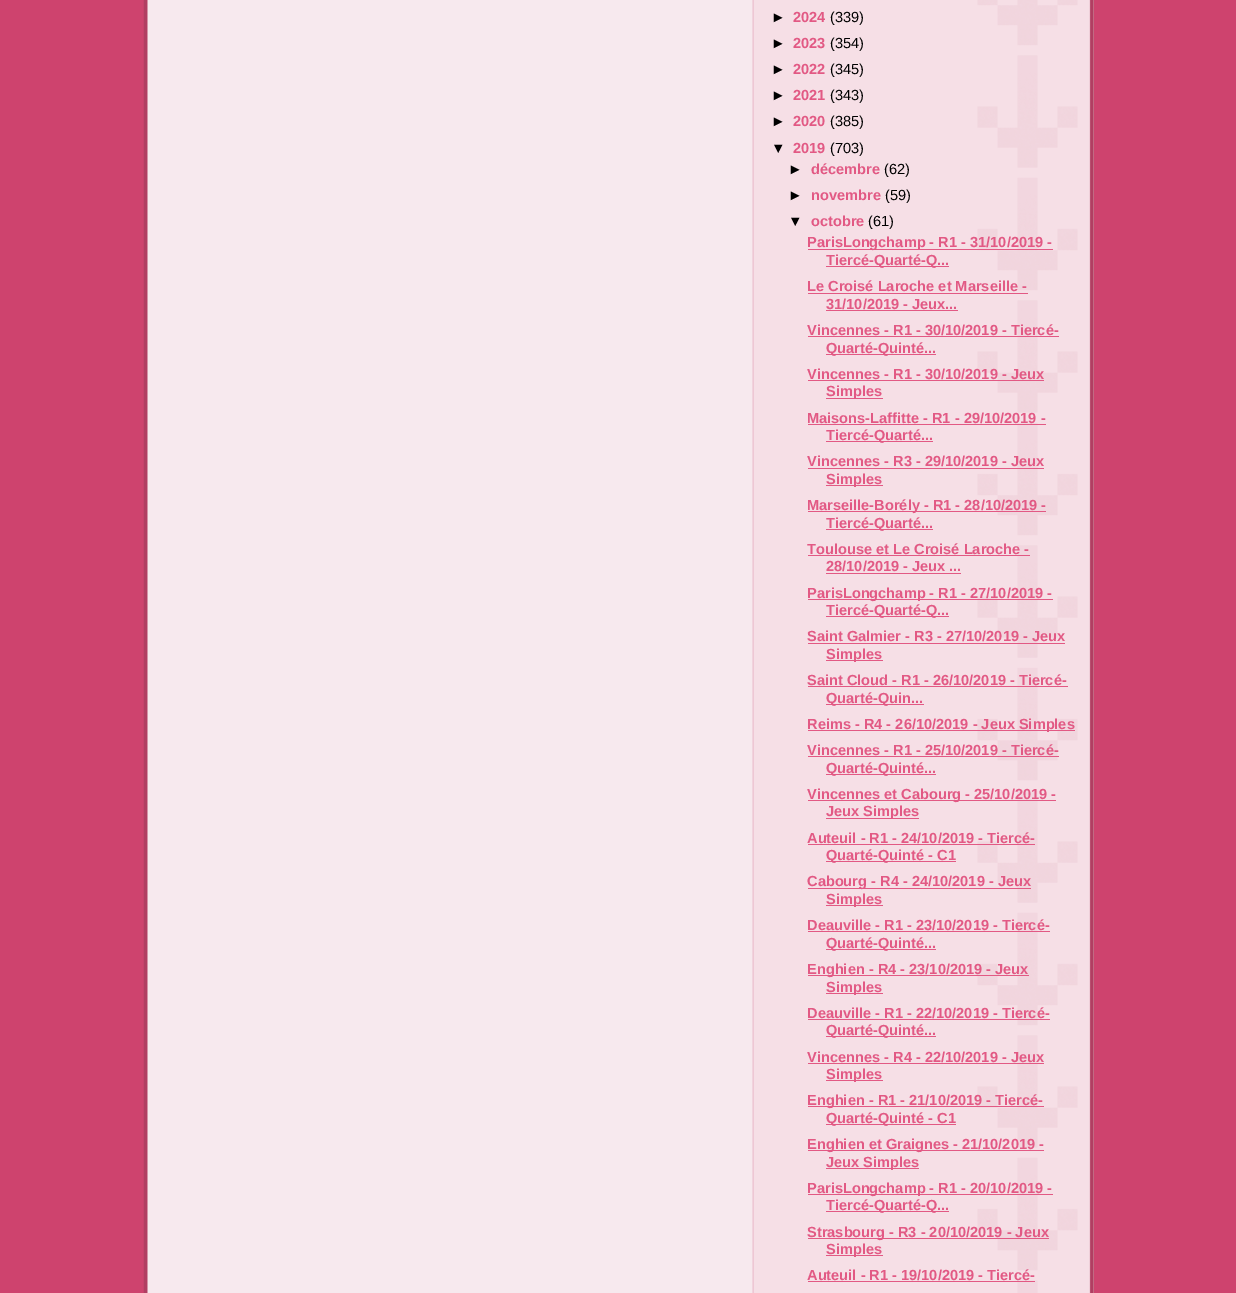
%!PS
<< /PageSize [1236 1293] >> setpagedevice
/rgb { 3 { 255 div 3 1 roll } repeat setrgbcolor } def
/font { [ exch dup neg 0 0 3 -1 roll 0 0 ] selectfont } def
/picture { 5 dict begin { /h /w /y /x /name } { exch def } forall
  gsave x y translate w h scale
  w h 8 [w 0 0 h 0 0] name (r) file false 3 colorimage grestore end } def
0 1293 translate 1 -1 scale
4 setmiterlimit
206 67 110 rgb
0 0 1236 1293 rectfill
(img/1.rgb) 143 0 951 1293 picture
(img/2.rgb) 977 0 101 1293 picture
[
  [808 249 245 1 226 89 132]
  [826 266 123 1 226 89 132]
  [808 293 220 1 226 89 132]
  [826 310 132 1 226 89 132]
  [808 336 251 1 226 89 132]
  [826 354 110 1 226 89 132]
  [808 380 236 1 226 89 132]
  [826 398 57 1 226 89 132]
  [808 424 238 1 226 89 132]
  [826 441 107 1 226 89 132]
  [808 468 236 1 226 89 132]
  [826 485 57 1 226 89 132]
  [808 511 238 1 226 89 132]
  [826 529 107 1 226 89 132]
  [808 555 222 1 226 89 132]
  [826 573 135 1 226 89 132]
  [808 599 245 1 226 89 132]
  [826 616 123 1 226 89 132]
  [808 643 257 1 226 89 132]
  [826 660 57 1 226 89 132]
  [808 686 260 1 226 89 132]
  [826 704 98 1 226 89 132]
  [808 730 267 1 226 89 132]
  [808 756 251 1 226 89 132]
  [826 774 110 1 226 89 132]
  [808 800 248 1 226 89 132]
  [826 818 93 1 226 89 132]
  [808 844 227 1 226 89 132]
  [826 861 130 1 226 89 132]
  [808 888 223 1 226 89 132]
  [826 905 57 1 226 89 132]
  [808 931 242 1 226 89 132]
  [826 949 110 1 226 89 132]
  [808 975 221 1 226 89 132]
  [826 993 57 1 226 89 132]
  [808 1019 242 1 226 89 132]
  [826 1036 110 1 226 89 132]
  [808 1063 236 1 226 89 132]
  [826 1080 57 1 226 89 132]
  [808 1106 236 1 226 89 132]
  [826 1124 130 1 226 89 132]
  [808 1150 236 1 226 89 132]
  [826 1168 93 1 226 89 132]
  [808 1194 245 1 226 89 132]
  [826 1211 123 1 226 89 132]
  [808 1238 241 1 226 89 132]
  [826 1255 57 1 226 89 132]
  [808 1281 227 1 226 89 132]
] { aload pop rgb rectfill } forall
/LiberationSans-Bold 14.6 font
0 0 0 rgb
771 22 moveto (►) show
226 89 132 rgb
793 22 moveto (2024) show
/LiberationSans-Regular 14.6 font
0 0 0 rgb
830 22 moveto (\(339\)) show
/LiberationSans-Bold 14.6 font
771 48 moveto (►) show
226 89 132 rgb
793 48 moveto (2023) show
/LiberationSans-Regular 14.6 font
0 0 0 rgb
830 48 moveto (\(354\)) show
/LiberationSans-Bold 14.6 font
771 74 moveto (►) show
226 89 132 rgb
793 74 moveto (2022) show
/LiberationSans-Regular 14.6 font
0 0 0 rgb
830 74 moveto (\(345\)) show
/LiberationSans-Bold 14.6 font
771 100 moveto (►) show
226 89 132 rgb
793 100 moveto (2021) show
/LiberationSans-Regular 14.6 font
0 0 0 rgb
830 100 moveto (\(343\)) show
/LiberationSans-Bold 14.6 font
771 126 moveto (►) show
226 89 132 rgb
793 126 moveto (2020) show
/LiberationSans-Regular 14.6 font
0 0 0 rgb
830 126 moveto (\(385\)) show
/LiberationSans-Bold 14.6 font
771 153 moveto (▼) show
226 89 132 rgb
793 153 moveto (2019) show
/LiberationSans-Regular 14.6 font
0 0 0 rgb
830 153 moveto (\(703\)) show
/LiberationSans-Bold 14.6 font
788 174 moveto (►) show
226 89 132 rgb
811 174 moveto (décembre) show
/LiberationSans-Regular 14.6 font
0 0 0 rgb
884 174 moveto (\(62\)) show
/LiberationSans-Bold 14.6 font
788 200 moveto (►) show
226 89 132 rgb
811 200 moveto (novembre) show
/LiberationSans-Regular 14.6 font
0 0 0 rgb
885 200 moveto (\(59\)) show
/LiberationSans-Bold 14.6 font
788 226 moveto (▼) show
226 89 132 rgb
811 226 moveto (octobre) show
/LiberationSans-Regular 14.6 font
0 0 0 rgb
868 226 moveto (\(61\)) show
/LiberationSans-Bold 14.6 font
226 89 132 rgb
[
  [(ParisLongchamp - R1 - 31/10/2019 -) 807 247]
  [(Tiercé-Quarté-Q...) 826 265]
  [(Le Croisé Laroche et Marseille -) 807 291]
  [(31/10/2019 - Jeux...) 826 309]
  [(Vincennes - R1 - 30/10/2019 - Tiercé-) 807 335]
  [(Quarté-Quinté...) 826 353]
  [(Vincennes - R1 - 30/10/2019 - Jeux) 807 379]
  [(Simples) 826 396]
  [(Maisons-Laffitte - R1 - 29/10/2019 -) 807 423]
  [(Tiercé-Quarté...) 826 440]
  [(Vincennes - R3 - 29/10/2019 - Jeux) 807 466]
  [(Simples) 826 484]
  [(Marseille-Borély - R1 - 28/10/2019 -) 807 510]
  [(Tiercé-Quarté...) 826 528]
  [(Toulouse et Le Croisé Laroche -) 807 554]
  [(28/10/2019 - Jeux ...) 826 571]
  [(ParisLongchamp - R1 - 27/10/2019 -) 807 598]
  [(Tiercé-Quarté-Q...) 826 615]
  [(Saint Galmier - R3 - 27/10/2019 - Jeux) 807 641]
  [(Simples) 826 659]
  [(Saint Cloud - R1 - 26/10/2019 - Tiercé-) 807 685]
  [(Quarté-Quin...) 826 703]
  [(Reims - R4 - 26/10/2019 - Jeux Simples) 807 729]
  [(Vincennes - R1 - 25/10/2019 - Tiercé-) 807 755]
  [(Quarté-Quinté...) 826 773]
  [(Vincennes et Cabourg - 25/10/2019 -) 807 799]
  [(Jeux Simples) 826 816]
  [(Auteuil - R1 - 24/10/2019 - Tiercé-) 807 843]
  [(Quarté-Quinté - C1) 826 860]
  [(Cabourg - R4 - 24/10/2019 - Jeux) 807 886]
  [(Simples) 826 904]
  [(Deauville - R1 - 23/10/2019 - Tiercé-) 807 930]
  [(Quarté-Quinté...) 826 948]
  [(Enghien - R4 - 23/10/2019 - Jeux) 807 974]
  [(Simples) 826 992]
  [(Deauville - R1 - 22/10/2019 - Tiercé-) 807 1018]
  [(Quarté-Quinté...) 826 1035]
  [(Vincennes - R4 - 22/10/2019 - Jeux) 807 1062]
  [(Simples) 826 1079]
  [(Enghien - R1 - 21/10/2019 - Tiercé-) 807 1105]
  [(Quarté-Quinté - C1) 826 1123]
  [(Enghien et Graignes - 21/10/2019 -) 807 1149]
  [(Jeux Simples) 826 1167]
  [(ParisLongchamp - R1 - 20/10/2019 -) 807 1193]
  [(Tiercé-Quarté-Q...) 826 1210]
  [(Strasbourg - R3 - 20/10/2019 - Jeux) 807 1237]
  [(Simples) 826 1254]
  [(Auteuil - R1 - 19/10/2019 - Tiercé-) 807 1280]
] { aload pop moveto show } forall
showpage
